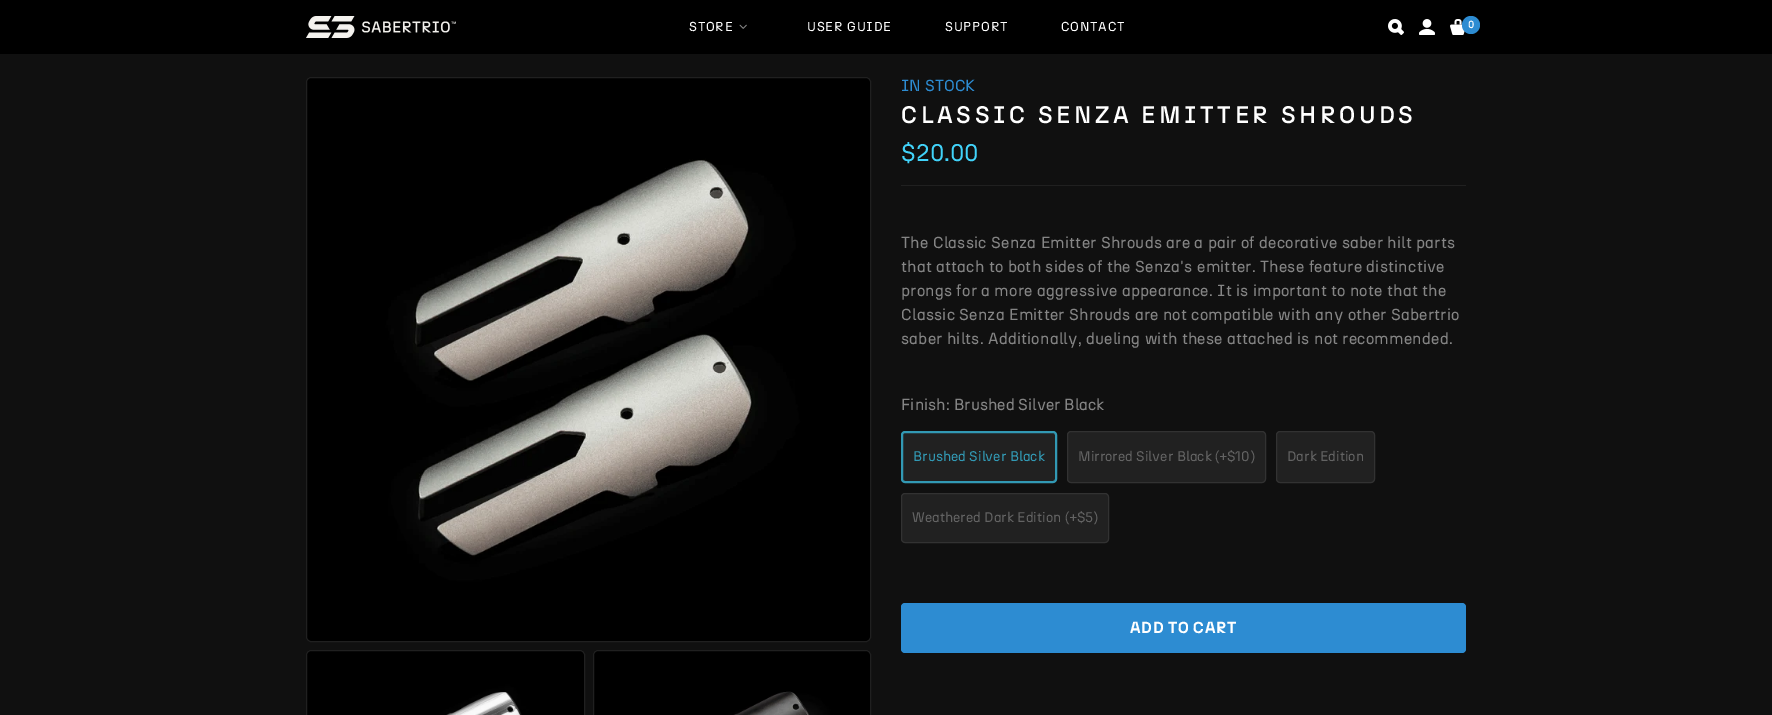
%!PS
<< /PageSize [1772 715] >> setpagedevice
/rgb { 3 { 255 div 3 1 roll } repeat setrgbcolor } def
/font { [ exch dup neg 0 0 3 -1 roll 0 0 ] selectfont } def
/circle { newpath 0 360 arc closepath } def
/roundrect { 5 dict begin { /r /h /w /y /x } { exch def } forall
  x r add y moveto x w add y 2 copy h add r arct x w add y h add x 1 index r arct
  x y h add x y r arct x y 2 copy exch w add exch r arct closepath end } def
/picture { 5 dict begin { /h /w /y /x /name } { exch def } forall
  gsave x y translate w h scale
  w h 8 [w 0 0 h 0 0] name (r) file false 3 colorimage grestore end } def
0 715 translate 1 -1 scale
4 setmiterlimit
16 16 16 rgb
0 0 1772 715 rectfill
0 0 0 rgb
0 0 1772 54 rectfill
(img/1.rgb) 306 16 150 22 picture
(img/2.rgb) 739 24 8 5 picture
(img/3.rgb) 1388 19 16 16 picture
(img/4.rgb) 1419 19 16 16 picture
(img/5.rgb) 1450 19 15 16 picture
45 140 210 rgb
1471 25 9 circle fill
(img/6.rgb) 306 77 565 565 picture
32 32 32 rgb
306.5 77.5 564 564 4.5 roundrect stroke
(img/7.rgb) 306 650 279 65 picture
306.5 650.5 278 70 4.5 roundrect stroke
(img/8.rgb) 593 650 278 65 picture
593.5 650.5 277 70 4.5 roundrect stroke
901 185 565 1 rectfill
33 33 33 rgb
902 432 154 50 3 roundrect gsave fill grestore
50 153 180 rgb
2 setlinewidth
stroke
33 33 33 rgb
1067.5 431.5 198 51 3.5 roundrect gsave fill grestore
50 50 50 rgb
1 setlinewidth
stroke
33 33 33 rgb
1276.5 431.5 98 51 3.5 roundrect gsave fill grestore
50 50 50 rgb
stroke
33 33 33 rgb
901.5 493.5 207 49 3.5 roundrect gsave fill grestore
50 50 50 rgb
stroke
45 140 210 rgb
901 603 565 50 4 roundrect fill
/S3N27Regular-Regular 13 font
255 255 255 rgb
689 31 moveto 0.75 0 (STORE) ashow
807 31 moveto 0.75 0 (USER GUIDE) ashow
945 31 moveto 0.75 0 (SUPPORT) ashow
1061 31 moveto 0.75 0 (CONTACT) ashow
/S3N27Regular-Bold 10 font
1468 28 moveto (0) show
/S3N27Regular-Regular 16 font
45 140 210 rgb
901 91 moveto (IN STOCK) show
/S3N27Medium-Medium 24 font
255 255 255 rgb
901 123 moveto 3.6 0 (CLASSIC SENZA EMITTER SHROUDS) ashow
/S3N27Regular-Regular 24 font
65 211 250 rgb
901 161 moveto ($20.00) show
/S3N27Regular-Regular 16 font
133 133 133 rgb
901 248 moveto 0.2 0 (The Classic Senza Emitter Shrouds are a pair of decorative saber hilt parts) ashow
901 272 moveto 0.2 0 (that attach to both sides of the Senza's emitter. These feature distinctive) ashow
901 296 moveto 0.2 0 (prongs for a more aggressive appearance. It is important to note that the) ashow
901 320 moveto 0.2 0 (Classic Senza Emitter Shrouds are not compatible with any other Sabertrio) ashow
901 344 moveto 0.2 0 (saber hilts. Additionally, dueling with these attached is not recommended.) ashow
901 410 moveto (Finish:) show
954 410 moveto (Brushed Silver Black) show
/S3N27Regular-Regular 14 font
50 153 180 rgb
913 461 moveto (Brushed Silver Black) show
99 99 99 rgb
[
  [(Mirrored Silver Black \(+$10\)) 1078 461]
  [(Dark Edition) 1287 461]
  [(Weathered Dark Edition \(+$5\)) 912 522]
] { aload pop moveto show } forall
/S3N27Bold-Bold 16 font
255 255 255 rgb
1130 633 moveto 0.75 0 (ADD TO CART) ashow
showpage
